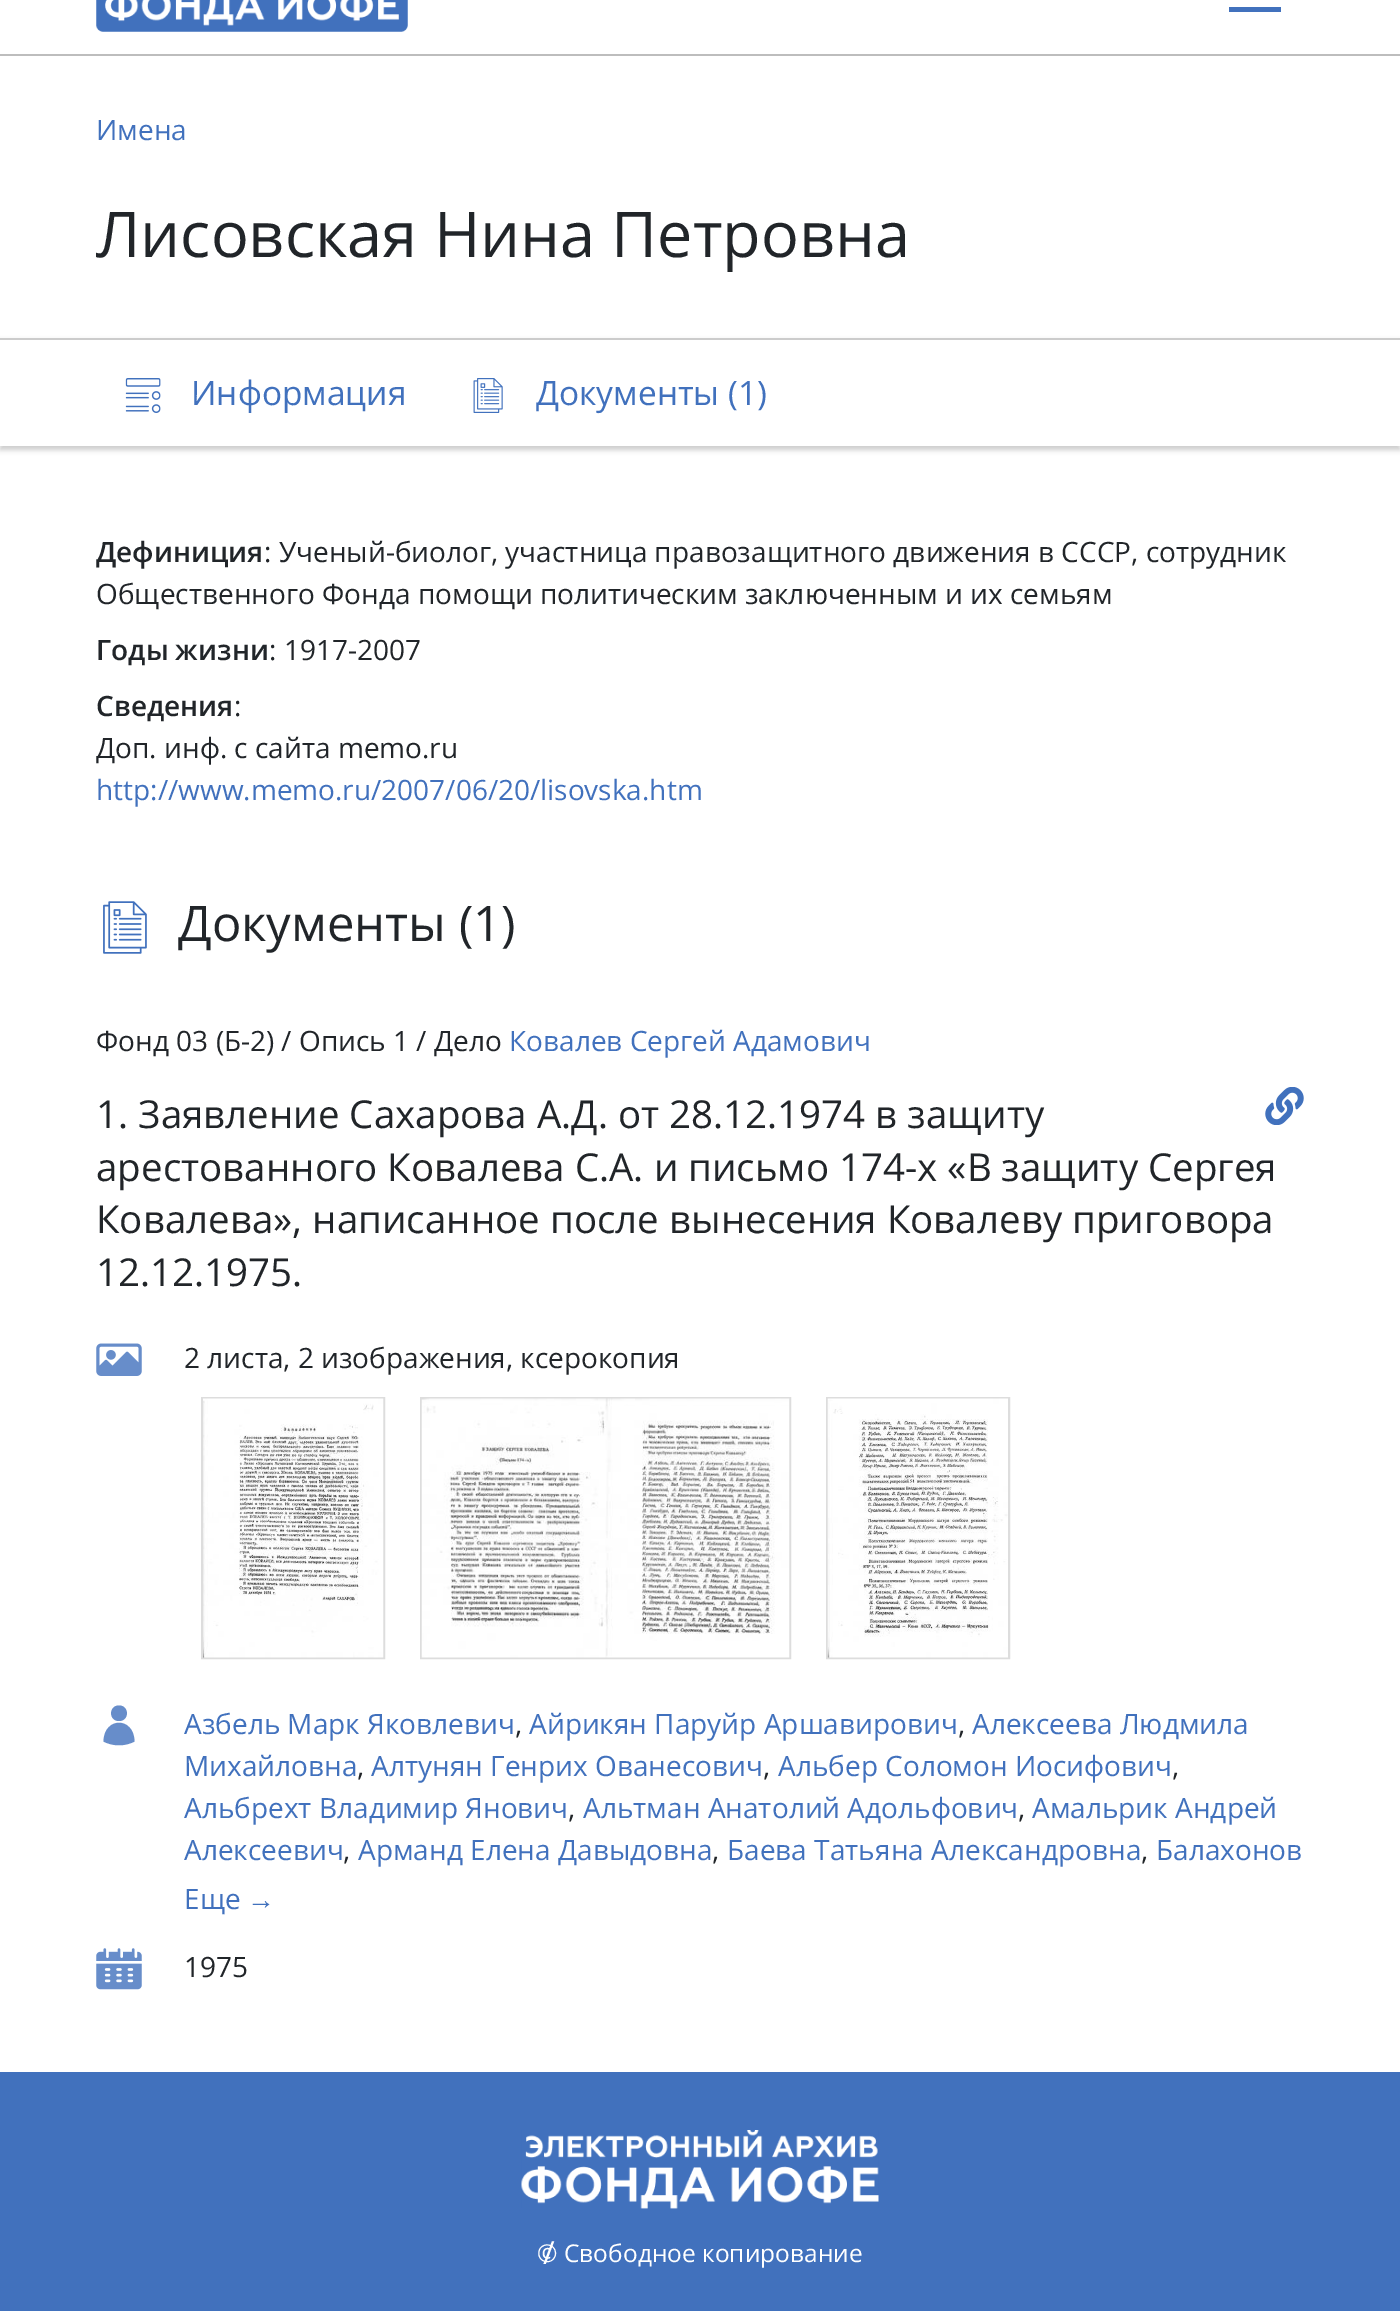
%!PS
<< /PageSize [1400 2311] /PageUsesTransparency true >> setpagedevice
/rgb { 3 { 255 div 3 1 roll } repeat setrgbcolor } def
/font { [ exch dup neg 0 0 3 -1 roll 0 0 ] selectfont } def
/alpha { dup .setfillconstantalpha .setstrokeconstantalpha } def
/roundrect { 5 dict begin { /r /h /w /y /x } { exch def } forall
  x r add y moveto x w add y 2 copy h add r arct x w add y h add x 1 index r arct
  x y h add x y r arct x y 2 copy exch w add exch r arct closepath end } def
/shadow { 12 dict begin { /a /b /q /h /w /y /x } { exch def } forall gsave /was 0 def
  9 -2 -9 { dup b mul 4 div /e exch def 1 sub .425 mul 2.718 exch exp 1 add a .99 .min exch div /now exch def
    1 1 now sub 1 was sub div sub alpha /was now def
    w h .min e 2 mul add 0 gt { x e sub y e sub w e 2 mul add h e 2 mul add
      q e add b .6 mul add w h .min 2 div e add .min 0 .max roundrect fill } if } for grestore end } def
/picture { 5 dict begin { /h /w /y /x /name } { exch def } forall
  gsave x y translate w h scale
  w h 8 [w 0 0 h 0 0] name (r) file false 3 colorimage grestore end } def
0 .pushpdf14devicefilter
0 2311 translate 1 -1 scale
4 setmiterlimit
255 255 255 rgb
0 0 1400 2311 rectfill
189 189 189 rgb
0 54 1400 2 rectfill
(img/1.rgb) 96 0 312 32 picture
65 113 189 rgb
1229 7 52 5 rectfill
gsave
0 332 moveto 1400 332 lineto 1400 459 lineto 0 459 lineto closepath 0 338 moveto 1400 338 lineto 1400 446 lineto 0 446 lineto closepath eoclip newpath
204 204 204 rgb
0 341 1400 109 0 2.5 1 shadow
grestore
204 204 204 rgb
0 338 1400 2 rectfill
(img/2.rgb) 125 378 36 35 picture
(img/3.rgb) 473 378 30 35 picture
(img/4.rgb) 103 901 44 53 picture
(img/5.rgb) 1265 1087 39 38 picture
(img/6.rgb) 96 1343 46 33 picture
221 221 221 rgb
2 setlinewidth
202 1398 182 260 rectstroke
(img/7.rgb) 203 1398 181 260 picture
421 1398 369 260 rectstroke
(img/8.rgb) 421 1398 369 260 picture
827 1398 182 260 rectstroke
(img/9.rgb) 827 1398 181 260 picture
103 141 202 rgb
134.5 1741.5 moveto 134 1716.5 104 1716.5 103.5 1741.5 curveto 113 1746.5 125 1746.5 134.5 1741.5 curveto closepath 119 1721 moveto 129.5 1721 129.5 1705.5 119 1705.5 curveto 108.5 1705.5 108.5 1721 119 1721 curveto closepath fill
(img/10.rgb) 96 1948 46 42 picture
65 113 189 rgb
0 2072 1400 239 rectfill
(img/11.rgb) 521 2130 358 79 picture
/OpenSans-Regular 28 font
96 140 moveto (Имена) show
/OpenSans-Regular 63 font
33 37 41 rgb
96 257 moveto (Лисовская Нина Петровна) show
/OpenSans-Regular 33.5 font
65 113 189 rgb
191 405 moveto (Информация) show
536 405 moveto (Документы \(1\)) show
/OpenSans-SemiBold 28 font
33 37 41 rgb
96 562 moveto (Дефиниция) show
/OpenSans-Regular 28 font
264 562 moveto (: Ученый-биолог, участница правозащитного движения в СССР, сотрудник) show
96 604 moveto (Общественного Фонда помощи политическим заключенным и их семьям) show
/OpenSans-SemiBold 28 font
96 660 moveto (Годы жизни) show
/OpenSans-Regular 28 font
269 660 moveto (: 1917-2007) show
/OpenSans-SemiBold 28 font
96 716 moveto (Сведения) show
/OpenSans-Regular 28 font
234 716 moveto (:) show
96 758 moveto (Доп. инф. с сайта memo.ru) show
65 113 189 rgb
96 800 moveto (http://www.memo.ru/2007/06/20/lisovska.htm) show
/OpenSans-Regular 49 font
33 37 41 rgb
178 941 moveto (Документы \(1\)) show
/OpenSans-Regular 28 font
96 1051 moveto (Фонд 03 \(Б-2\) / Опись 1 / Дело) show
65 113 189 rgb
509 1051 moveto (Ковалев Сергей Адамович) show
/OpenSans-Regular 38.5 font
33 37 41 rgb
[
  [(1. Заявление Сахарова А.Д. от 28.12.1974 в защиту) 96 1128]
  [(арестованного Ковалева С.А. и письмо 174-х «В защиту Сергея) 96 1181]
  [(Ковалева», написанное после вынесения Ковалеву приговора) 96 1233]
  [(12.12.1975.) 96 1286]
] { aload pop moveto show } forall
/OpenSans-Regular 28 font
184 1368 moveto (2 листа, 2 изображения, ксерокопия) show
65 113 189 rgb
184 1734 moveto (Азбель Марк Яковлевич) show
33 37 41 rgb
515 1734 moveto (,) show
65 113 189 rgb
529 1734 moveto (Айрикян Паруйр Аршавирович) show
33 37 41 rgb
958 1734 moveto (,) show
65 113 189 rgb
972 1734 moveto (Алексеева Людмила) show
184 1776 moveto (Михайловна) show
33 37 41 rgb
357 1776 moveto (,) show
65 113 189 rgb
371 1776 moveto (Алтунян Генрих Ованесович) show
33 37 41 rgb
763 1776 moveto (,) show
65 113 189 rgb
778 1776 moveto (Альбер Соломон Иосифович) show
33 37 41 rgb
1172 1776 moveto (,) show
65 113 189 rgb
184 1818 moveto (Альбрехт Владимир Янович) show
33 37 41 rgb
568 1818 moveto (,) show
65 113 189 rgb
583 1818 moveto (Альтман Анатолий Адольфович) show
33 37 41 rgb
1018 1818 moveto (,) show
65 113 189 rgb
1032 1818 moveto (Амальрик Андрей) show
184 1860 moveto (Алексеевич) show
33 37 41 rgb
343 1860 moveto (,) show
65 113 189 rgb
358 1860 moveto (Арманд Елена Давыдовна) show
33 37 41 rgb
712 1860 moveto (,) show
65 113 189 rgb
727 1860 moveto (Баева Татьяна Александровна) show
33 37 41 rgb
1141 1860 moveto (,) show
65 113 189 rgb
1156 1860 moveto (Балахонов) show
184 1909 moveto (Еще) show
/LiberationSans-Regular 28 font
247 1909 moveto (→) show
/OpenSans-Regular 28 font
33 37 41 rgb
184 1977 moveto (1975) show
/OpenSans-Regular 24.5 font
255 255 255 rgb
537 2262 moveto (©) show
/OpenSans-Regular 32 font
543 2264 moveto (/) show
/OpenSans-Regular 24.5 font
564 2262 moveto (Свободное копирование) show
.poppdf14devicefilter showpage
